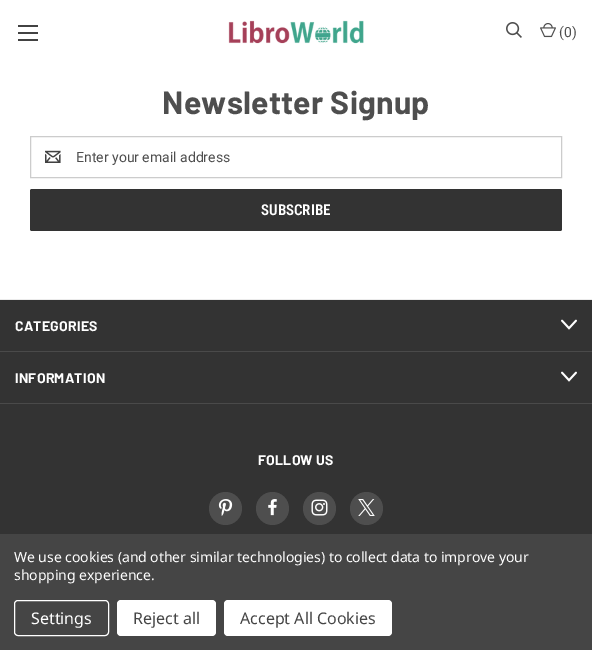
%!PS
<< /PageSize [592 650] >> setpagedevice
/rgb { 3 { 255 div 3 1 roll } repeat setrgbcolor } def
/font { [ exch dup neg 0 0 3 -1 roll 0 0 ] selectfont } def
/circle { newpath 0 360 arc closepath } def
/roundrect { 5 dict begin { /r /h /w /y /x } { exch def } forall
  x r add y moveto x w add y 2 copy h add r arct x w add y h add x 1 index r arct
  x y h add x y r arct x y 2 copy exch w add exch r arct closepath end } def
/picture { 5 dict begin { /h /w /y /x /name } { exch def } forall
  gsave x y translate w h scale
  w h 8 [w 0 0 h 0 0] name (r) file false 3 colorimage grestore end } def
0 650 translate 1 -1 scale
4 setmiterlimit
255 255 255 rgb
0 0 592 650 rectfill
[
  [18 32 20 2 66 66 66]
  [18 25 20 2 66 66 66]
  [18 39 20 2 66 66 66]
] { aload pop rgb rectfill } forall
(img/1.rgb) 228 20 136 24 picture
(img/2.rgb) 506 22 16 16 picture
(img/3.rgb) 540 23 16 15 picture
204 204 204 rgb
30.5 136.5 531 41 rectstroke
(img/4.rgb) 45 150 16 13 picture
51 51 51 rgb
30 189 532 42 2 roundrect fill
[
  [0 300 592 234 51 51 51]
  [0 299 592 1 235 235 235]
  [0 351 592 1 74 74 74]
] { aload pop rgb rectfill } forall
(img/5.rgb) 561 319 16 11 picture
0 403 592 1 rectfill
(img/5.rgb) 561 371 16 11 picture
78 78 78 rgb
225.5 508.5 16.5 circle fill
(img/6.rgb) 218 499 15 17 picture
272.5 508.5 16.5 circle fill
(img/7.rgb) 268 499 9 17 picture
319.5 508.5 16.5 circle fill
(img/8.rgb) 311 499 17 17 picture
366.5 508.5 16.5 circle fill
(img/9.rgb) 358 499 17 17 picture
69 69 69 rgb
0 534 592 116 rectfill
255 255 255 rgb
14.5 600.5 94 35 3.5 roundrect stroke
117 600 99 36 4 roundrect fill
224 600 168 36 4 roundrect fill
/Roboto-Regular 14 font
78 78 78 rgb
559 37 moveto (\(0\)) show
/Barlow-Bold 32 font
162 114 moveto 0.25 0 (Newsletter Signup) ashow
/Roboto-Regular 14 font
76 162 moveto (Enter your email address) show
/RobotoCondensed-SemiBold 15 font
255 255 255 rgb
261 215 moveto (SUBSCRIBE) show
/Barlow-Bold 14 font
15 331 moveto 0.25 0 (CATEGORIES) ashow
15 383 moveto 0.25 0 (INFORMATION) ashow
258 465 moveto 0.25 0 (FOLLOW US) ashow
/NotoSans-Regular 14 font
14 562 moveto -0.05 0 (We use cookies \(and other similar technologies\) to collect data to improve your) ashow
14 580 moveto -0.05 0 (shopping experience.) ashow
/NotoSans-Regular 16 font
31 624 moveto (Settings) show
69 69 69 rgb
133 624 moveto (Reject all) show
240 624 moveto (Accept All Cookies) show
showpage
